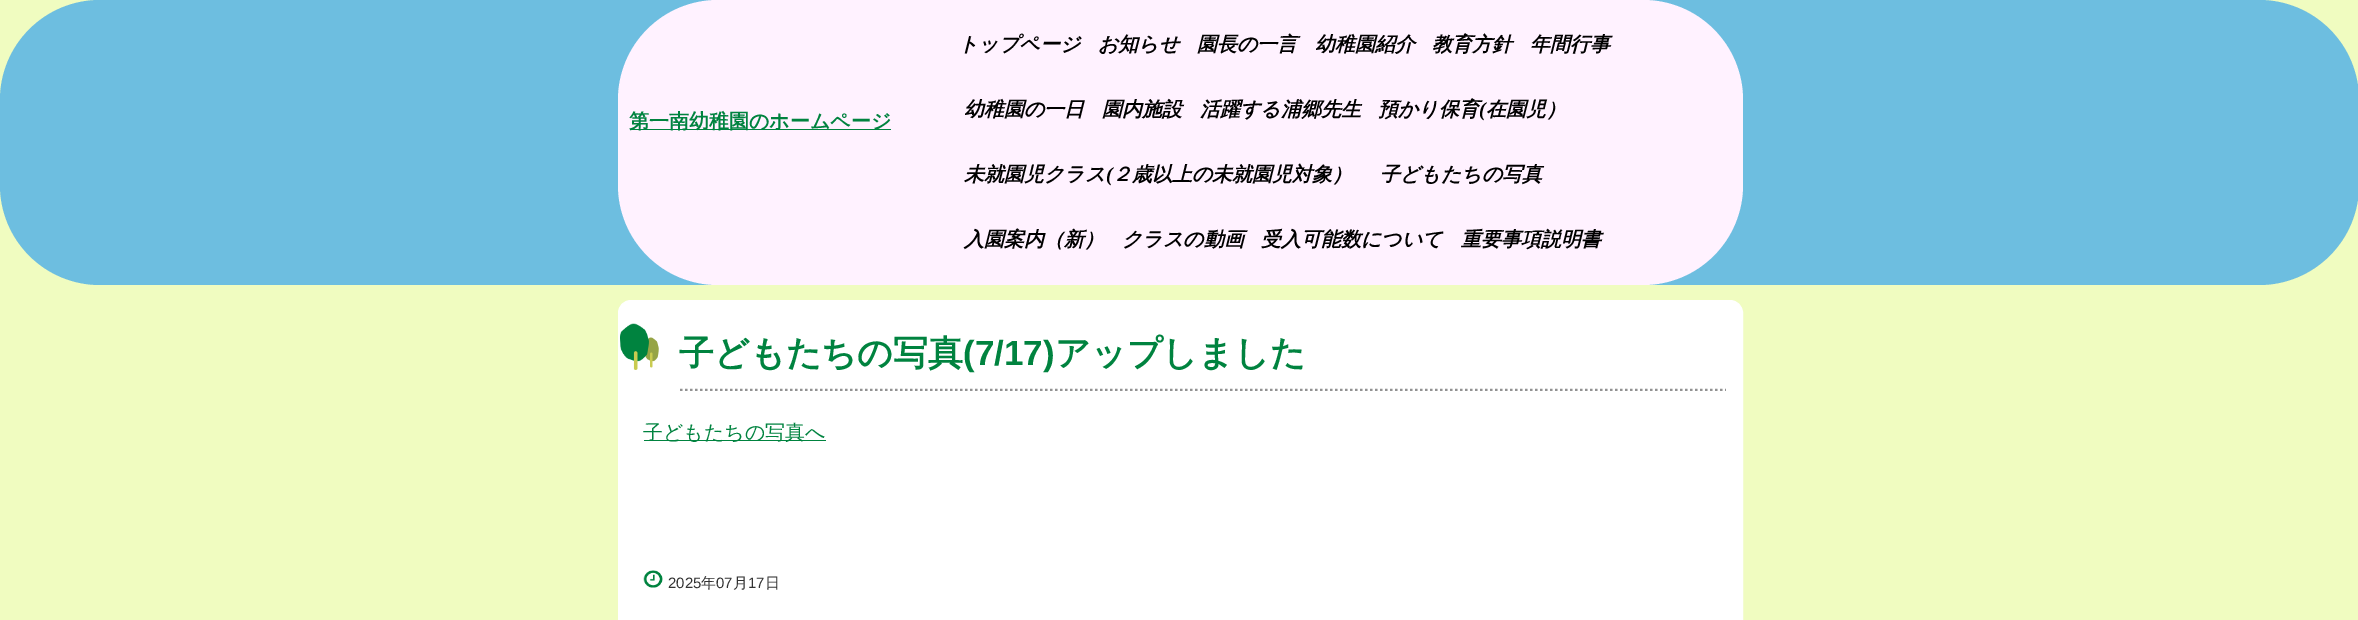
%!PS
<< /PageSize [2358 620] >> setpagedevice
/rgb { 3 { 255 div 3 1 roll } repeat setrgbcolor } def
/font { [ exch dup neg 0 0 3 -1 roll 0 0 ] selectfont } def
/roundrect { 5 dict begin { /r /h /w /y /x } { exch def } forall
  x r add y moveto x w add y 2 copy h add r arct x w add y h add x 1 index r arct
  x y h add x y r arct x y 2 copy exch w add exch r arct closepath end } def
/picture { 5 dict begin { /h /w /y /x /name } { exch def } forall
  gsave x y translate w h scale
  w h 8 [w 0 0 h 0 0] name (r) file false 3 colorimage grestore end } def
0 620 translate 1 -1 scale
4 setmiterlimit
240 252 192 rgb
0 0 2358 620 rectfill
109 190 224 rgb
0 0 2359 285 100 roundrect fill
255 242 255 rgb
618 0 1125 285 100 roundrect fill
0 131 63 rgb
630 129 261 1 rectfill
255 255 255 rgb
618.5 300.5 1124 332 12.5 roundrect gsave fill grestore
stroke
(img/1.rgb) 620 323 39 47 picture
gsave
631 303 moveto 1729 303 lineto 1735 303 1740 308 1740 314 curveto 1740 391 lineto 620 391 lineto 620 314 lineto 620 308 625 303 631 303 curveto closepath clip newpath
146 146 146 rgb
2.5 setlinewidth
[2.5 2.5] 0 setdash
680 390 moveto 1726 390 lineto stroke
grestore
0 131 63 rgb
644 440 182 1 rectfill
(img/2.rgb) 643 570 20 18 picture
/WenQuanYiZenHei-Bold 20 font
629 128 moveto (第一南幼稚園のホームページ) show
/WenQuanYiZenHei-BoldItalic 20 font
0 0 0 rgb
[
  [(トップページ) 958 51]
  [(お知らせ) 1098 51]
  [(園長の一言) 1197 51]
  [(幼稚園紹介) 1315 51]
  [(教育方針) 1432 51]
  [(年間行事) 1530 51]
  [(幼稚園の一日) 964 116]
  [(園内施設) 1102 116]
  [(活躍する浦郷先生) 1200 116]
  [(預かり保育) 1378 116]
] { aload pop moveto show } forall
/LiberationSerif-BoldItalic 20 font
1479 116 moveto (\() show
/WenQuanYiZenHei-BoldItalic 20 font
1486 116 moveto (在園児）) show
964 181 moveto (未就園児クラス) show
/LiberationSerif-BoldItalic 20 font
1106 181 moveto (\() show
/WenQuanYiZenHei-BoldItalic 20 font
[
  [(２歳以上の未就園児対象）) 1112 181]
  [(子どもたちの写真) 1380 181]
  [(入園案内（新）) 964 246]
  [(クラスの動画) 1122 246]
  [(受入可能数について) 1261 246]
  [(重要事項説明書) 1461 246]
] { aload pop moveto show } forall
/WenQuanYiZenHei-Bold 35 font
0 131 63 rgb
679 365 moveto (子どもたちの写真) show
/LiberationSans-Bold 35 font
963 365 moveto (\(7/17\)) show
/WenQuanYiZenHei-Bold 35 font
1055 365 moveto (アップしました) show
/WenQuanYiZenHei-Medium 20 font
643 439 moveto (子どもたちの写真へ) show
/LiberationSans-Regular 15 font
51 51 51 rgb
668 588 moveto (2025) show
/WenQuanYiZenHei-Medium 15 font
701 588 moveto (年) show
/LiberationSans-Regular 15 font
716 588 moveto (07) show
/WenQuanYiZenHei-Medium 15 font
733 588 moveto (月) show
/LiberationSans-Regular 15 font
748 588 moveto (17) show
/WenQuanYiZenHei-Medium 15 font
765 588 moveto (日) show
showpage
